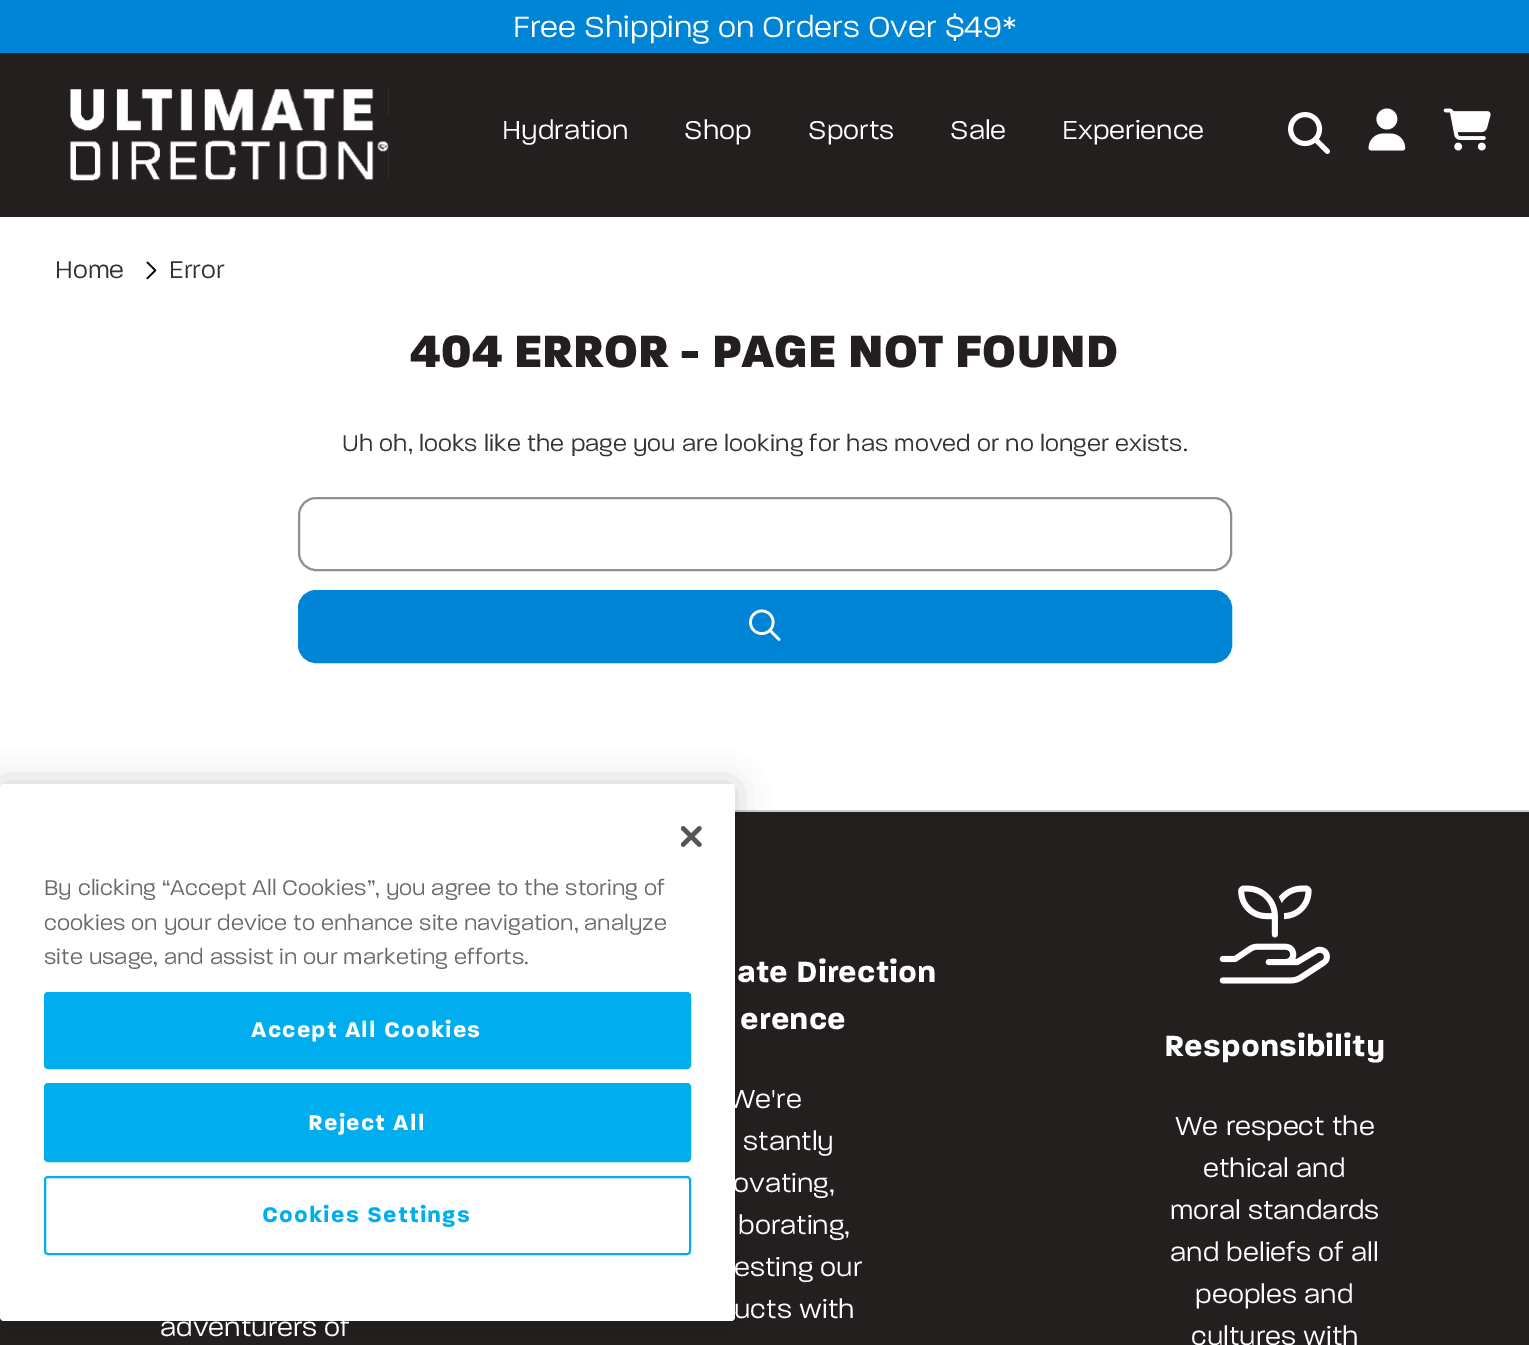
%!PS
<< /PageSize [1529 1345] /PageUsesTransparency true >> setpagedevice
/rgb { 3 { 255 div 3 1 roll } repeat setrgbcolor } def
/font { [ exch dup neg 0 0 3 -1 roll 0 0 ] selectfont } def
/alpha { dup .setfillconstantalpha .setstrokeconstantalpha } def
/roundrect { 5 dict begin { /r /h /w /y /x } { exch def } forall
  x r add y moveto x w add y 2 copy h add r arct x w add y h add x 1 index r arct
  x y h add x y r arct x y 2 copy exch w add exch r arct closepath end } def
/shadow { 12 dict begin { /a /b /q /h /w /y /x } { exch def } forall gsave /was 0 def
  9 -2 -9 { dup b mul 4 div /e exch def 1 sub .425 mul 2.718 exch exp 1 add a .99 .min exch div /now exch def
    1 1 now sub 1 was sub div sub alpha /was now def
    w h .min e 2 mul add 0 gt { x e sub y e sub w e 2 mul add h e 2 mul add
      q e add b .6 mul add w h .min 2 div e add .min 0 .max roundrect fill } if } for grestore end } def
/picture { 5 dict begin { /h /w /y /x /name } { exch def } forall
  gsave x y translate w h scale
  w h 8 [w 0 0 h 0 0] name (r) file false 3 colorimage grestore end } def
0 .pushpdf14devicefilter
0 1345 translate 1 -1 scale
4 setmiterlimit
255 255 255 rgb
0 0 1529 1345 rectfill
0 132 213 rgb
0 0 1529 53 rectfill
36 31 31 rgb
0 53 1529 164 rectfill
(img/1.rgb) 70 89 319 92 picture
(img/2.rgb) 1288 112 42 42 picture
(img/3.rgb) 1368 108 38 43 picture
(img/4.rgb) 1443 108 48 43 picture
(img/5.rgb) 146 261 11 19 picture
143 143 143 rgb
2 setlinewidth
299 498 932 72 17 roundrect stroke
0 132 213 rgb
300.5 592.5 929 68 15.5 roundrect gsave fill grestore
5 setlinewidth
stroke
(img/6.rgb) 749 609 32 32 picture
36 31 31 rgb
0 812 1529 533 rectfill
204 204 204 rgb
735 810 794 2 rectfill
0 0 0 rgb
0 784 735 537 4 16 0.2 shadow
255 255 255 rgb
0 784 735 537 4 roundrect fill
(img/7.rgb) 681 826 21 21 picture
0 174 239 rgb
45 993 645 75 3 roundrect gsave fill grestore
2 setlinewidth
stroke
45 1084 645 77 3 roundrect gsave fill grestore
stroke
45 1177 645 77 3 roundrect stroke
(img/8.rgb) 1219 885 111 99 picture
/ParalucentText-Regular 31.5 font
255 255 255 rgb
513 37 moveto (Free Shipping on Orders Over $49*) show
/ParalucentText-Regular 28 font
[
  [(Hydration) 502 139]
  [(Shop) 684 139]
  [(Sports) 808 139]
  [(Sale) 950 139]
  [(Experience) 1062 139]
] { aload pop moveto show } forall
/ParalucentText-Regular 26 font
51 51 51 rgb
55 278 moveto (Home) show
169 278 moveto (Error) show
/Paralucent-Black 49 font
36 31 31 rgb
410 367 moveto 0.45 0 (404 ERROR - PAGE NOT FOUND) ashow
/ParalucentText-Regular 24.5 font
51 51 51 rgb
342 451 moveto (Uh oh, looks like the page you are looking for has moved or no longer exists.) show
/ParalucentText-Regular 22.95 font
105 105 105 rgb
[
  [(By clicking “Accept All Cookies”, you agree to the storing of) 44 895]
  [(cookies on your device to enhance site navigation, analyze) 44 930]
  [(site usage, and assist in our marketing efforts.) 44 964]
] { aload pop moveto show } forall
/ParalucentText-Bold 22.95 font
255 255 255 rgb
251 1037 moveto 1.1 0 (Accept All Cookies) ashow
308 1130 moveto 1.1 0 (Reject All) ashow
0 174 239 rgb
262 1222 moveto 1.1 0 (Cookies Settings) ashow
/ParalucentText-Regular 28 font
255 255 255 rgb
160 1336 moveto (adventurers of) show
/ParalucentText-Bold 31.5 font
737 982 moveto (ate Direction) show
740 1029 moveto (erence) show
/ParalucentText-Regular 28 font
[
  [(We're) 728 1108]
  [(stantly) 743 1150]
  [(ovating,) 733 1192]
  [(borating,) 738 1234]
  [(esting our) 734 1276]
  [(ucts with) 734 1318]
] { aload pop moveto show } forall
/ParalucentText-Bold 31.5 font
1164 1056 moveto (Responsibility) show
/ParalucentText-Regular 28 font
[
  [(We respect the) 1175 1135]
  [(ethical and) 1203 1177]
  [(moral standards) 1170 1219]
  [(and beliefs of all) 1170 1261]
  [(peoples and) 1195 1303]
  [(cultures with) 1191 1345]
] { aload pop moveto show } forall
.poppdf14devicefilter showpage
